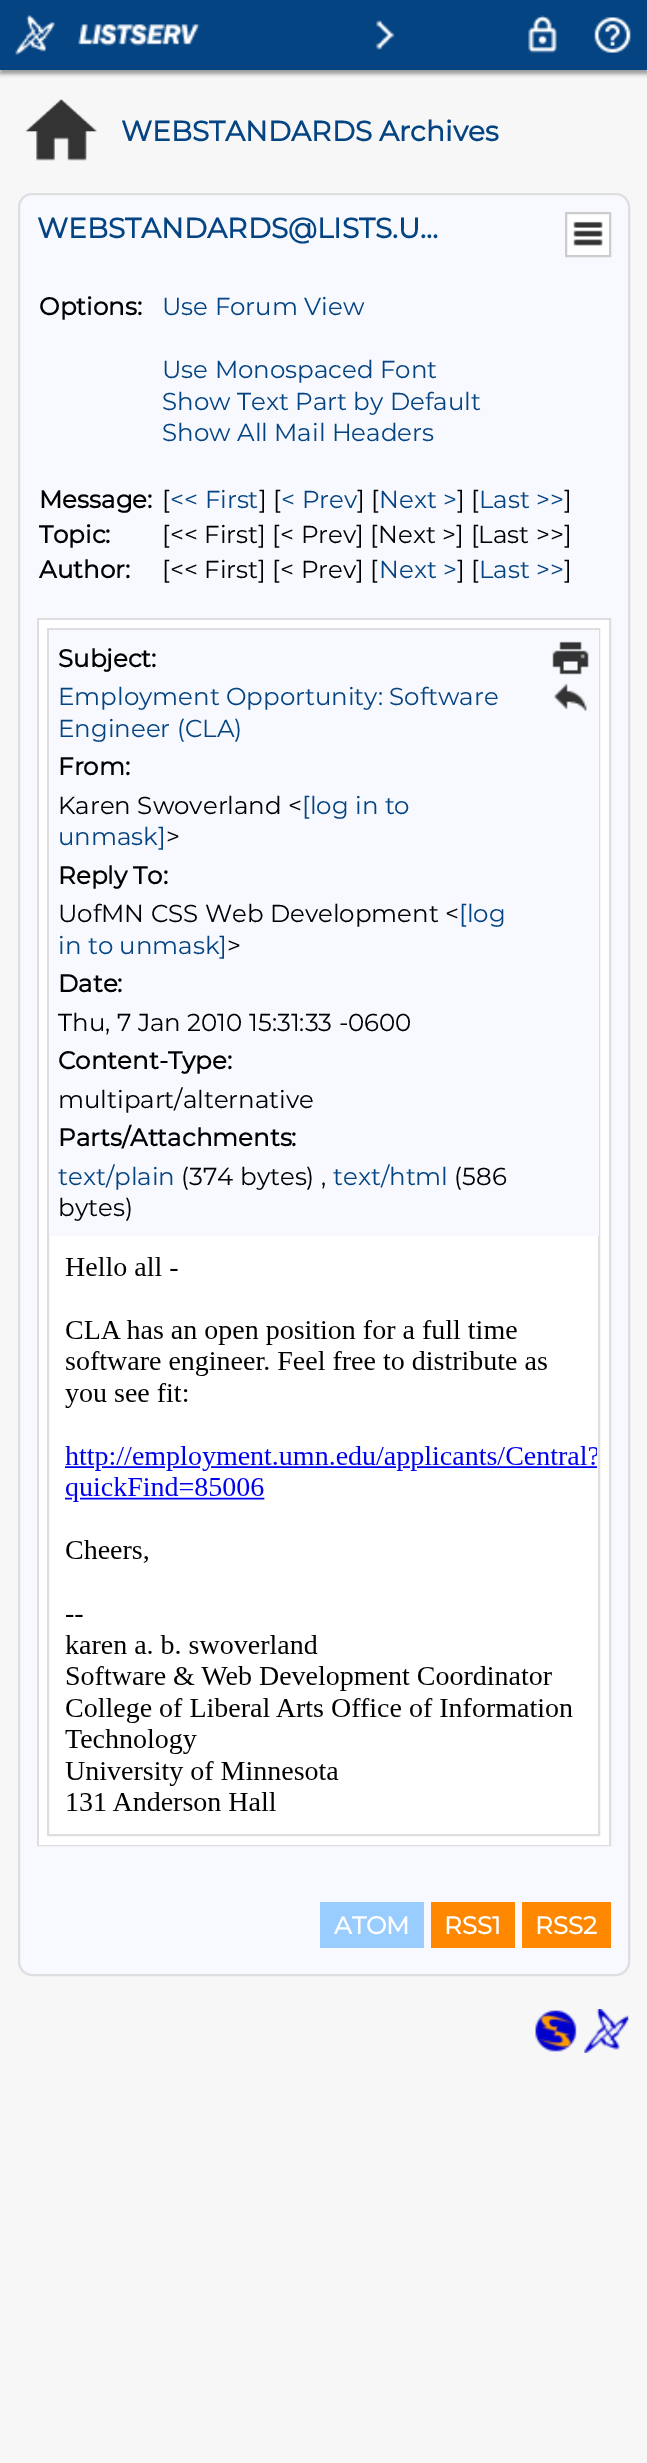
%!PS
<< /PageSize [647 2463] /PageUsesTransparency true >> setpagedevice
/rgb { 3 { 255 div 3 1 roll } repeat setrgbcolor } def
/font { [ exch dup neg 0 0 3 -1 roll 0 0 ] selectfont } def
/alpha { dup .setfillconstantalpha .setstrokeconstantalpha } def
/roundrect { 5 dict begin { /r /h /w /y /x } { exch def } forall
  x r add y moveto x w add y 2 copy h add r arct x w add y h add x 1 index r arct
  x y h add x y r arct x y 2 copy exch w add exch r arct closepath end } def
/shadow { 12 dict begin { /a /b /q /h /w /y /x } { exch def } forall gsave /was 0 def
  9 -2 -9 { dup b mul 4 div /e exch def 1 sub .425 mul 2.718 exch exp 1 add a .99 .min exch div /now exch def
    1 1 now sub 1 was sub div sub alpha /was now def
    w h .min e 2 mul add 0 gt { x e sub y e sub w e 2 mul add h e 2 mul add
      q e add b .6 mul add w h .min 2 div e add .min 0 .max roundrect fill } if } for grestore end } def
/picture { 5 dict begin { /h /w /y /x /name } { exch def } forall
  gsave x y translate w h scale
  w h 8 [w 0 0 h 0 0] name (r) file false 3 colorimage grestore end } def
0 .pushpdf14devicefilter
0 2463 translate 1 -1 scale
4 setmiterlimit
247 247 247 rgb
0 0 647 2463 rectfill
153 153 153 rgb
0 4 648 70 0 2 1 shadow
5 68 131 rgb
0 0 647 70 rectfill
(img/1.rgb) 15 15 40 40 picture
(img/2.rgb) 78 24 122 22 picture
(img/3.rgb) 375 20 20 30 picture
(img/4.rgb) 528 15 29 38 picture
(img/5.rgb) 594 17 37 36 picture
(img/6.rgb) 25 99 72 62 picture
247 249 254 rgb
19 194 610 1781 13 roundrect gsave fill grestore
222 222 222 rgb
2 setlinewidth
stroke
255 255 255 rgb
566 213 moveto 610 213 lineto 610 256 lineto 566 256 lineto closepath gsave fill grestore
204 204 204 rgb
stroke
(img/7.rgb) 573 221 30 25 picture
222 222 222 rgb
38 619 572 1226 rectstroke
255 255 255 rgb
39 620 570 1225 rectfill
222 222 222 rgb
48 629 551 1206 rectstroke
247 249 254 rgb
49 630 550 606 rectfill
(img/8.rgb) 552 641 37 34 picture
(img/9.rgb) 554 683 33 28 picture
(img/10.rgb) 65 1257 532 554 picture
[
  [320 1902 104 46 153 204 255]
  [431 1902 84 46 255 136 0]
  [522 1902 89 46 255 136 0]
] { aload pop rgb rectfill } forall
(img/11.rgb) 535 2010 42 42 picture
(img/12.rgb) 584 2009 45 44 picture
/Montserrat-Bold 28 font
5 68 131 rgb
121 141 moveto (WEBSTANDARDS Archives) show
37 238 moveto (WEBSTANDARDS@LISTS.U…) show
/Montserrat-Bold 24.5 font
0 0 0 rgb
39 315 moveto (Options:) show
/Montserrat-Thin 24.5 font
5 68 131 rgb
[
  [(Use Forum View) 162 315]
  [(Use Monospaced Font) 162 378]
  [(Show Text Part by Default) 162 410]
  [(Show All Mail Headers) 162 441]
] { aload pop moveto show } forall
/Montserrat-Bold 24.5 font
0 0 0 rgb
39 508 moveto (Message:) show
/Montserrat-Thin 24.5 font
162 508 moveto ([) show
5 68 131 rgb
170 508 moveto (<< First) show
0 0 0 rgb
259 508 moveto (] [) show
5 68 131 rgb
281 508 moveto (< Prev) show
0 0 0 rgb
357 508 moveto (] [) show
5 68 131 rgb
379 508 moveto (Next >) show
0 0 0 rgb
457 508 moveto (] [) show
5 68 131 rgb
479 508 moveto (Last >>) show
0 0 0 rgb
564 508 moveto (]) show
/Montserrat-Bold 24.5 font
39 543 moveto (Topic:) show
/Montserrat-Thin 24.5 font
162 543 moveto ([<< First] [< Prev] [Next >] [Last >>]) show
/Montserrat-Bold 24.5 font
39 578 moveto (Author:) show
/Montserrat-Thin 24.5 font
162 578 moveto ([<< First] [< Prev] [) show
5 68 131 rgb
379 578 moveto (Next >) show
0 0 0 rgb
457 578 moveto (] [) show
5 68 131 rgb
479 578 moveto (Last >>) show
0 0 0 rgb
564 578 moveto (]) show
/Montserrat-Bold 24.5 font
58 667 moveto (Subject:) show
/Montserrat-Thin 24.5 font
5 68 131 rgb
58 705 moveto (Employment Opportunity: Software) show
58 737 moveto (Engineer \(CLA\)) show
/Montserrat-Bold 24.5 font
0 0 0 rgb
58 775 moveto (From:) show
/Montserrat-Thin 24.5 font
58 814 moveto (Karen Swoverland <) show
5 68 131 rgb
302 814 moveto ([log in to) show
58 845 moveto (unmask]) show
0 0 0 rgb
166 845 moveto (>) show
/Montserrat-Bold 24.5 font
58 884 moveto (Reply To:) show
/Montserrat-Thin 24.5 font
58 922 moveto (UofMN CSS Web Development <) show
5 68 131 rgb
459 922 moveto ([log) show
58 954 moveto (in to unmask]) show
0 0 0 rgb
227 954 moveto (>) show
/Montserrat-Bold 24.5 font
58 992 moveto (Date:) show
/Montserrat-Thin 24.5 font
58 1031 moveto (Thu, 7 Jan 2010 15:31:33 -0600) show
/Montserrat-Bold 24.5 font
58 1069 moveto (Content-Type:) show
/Montserrat-Thin 24.5 font
58 1108 moveto (multipart/alternative) show
/Montserrat-Bold 24.5 font
58 1146 moveto (Parts/Attachments:) show
/Montserrat-Thin 24.5 font
5 68 131 rgb
58 1185 moveto (text/plain) show
0 0 0 rgb
181 1185 moveto (\(374 bytes\) ,) show
5 68 131 rgb
333 1185 moveto (text/html) show
0 0 0 rgb
454 1185 moveto (\(586) show
58 1216 moveto (bytes\)) show
/Montserrat-Bold 24.5 font
255 255 255 rgb
[
  [(ATOM) 334 1934]
  [(RSS1) 444 1934]
  [(RSS2) 535 1934]
] { aload pop moveto show } forall
.poppdf14devicefilter showpage
